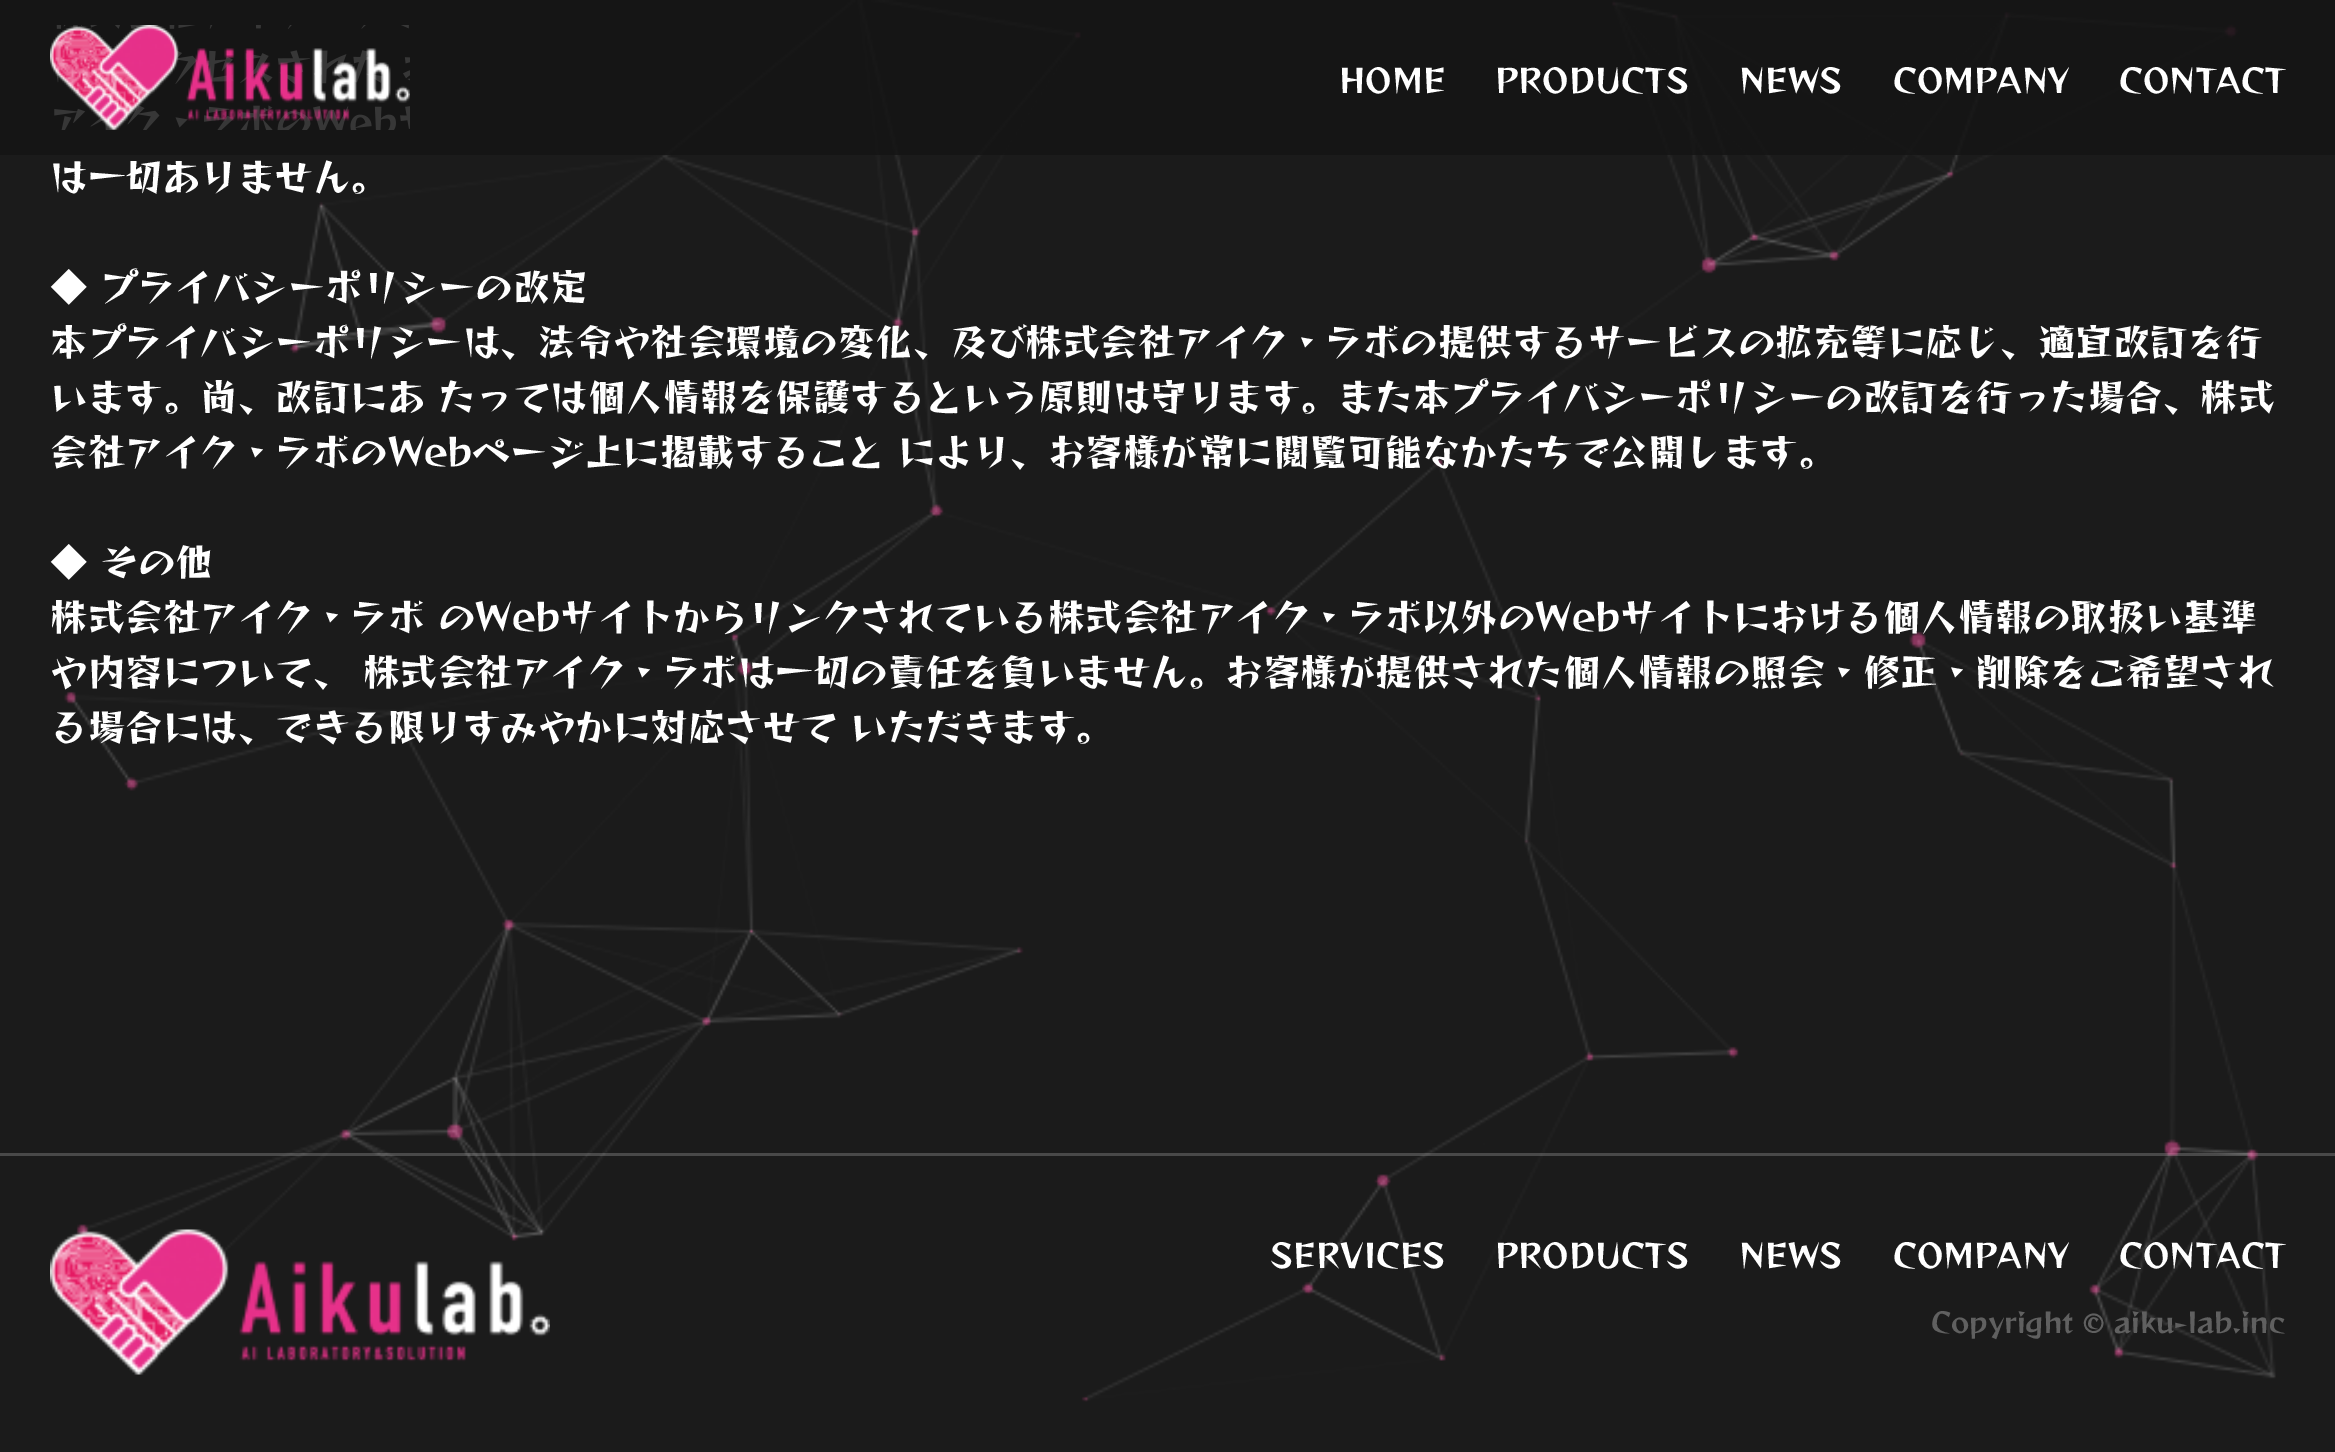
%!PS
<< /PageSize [2335 1452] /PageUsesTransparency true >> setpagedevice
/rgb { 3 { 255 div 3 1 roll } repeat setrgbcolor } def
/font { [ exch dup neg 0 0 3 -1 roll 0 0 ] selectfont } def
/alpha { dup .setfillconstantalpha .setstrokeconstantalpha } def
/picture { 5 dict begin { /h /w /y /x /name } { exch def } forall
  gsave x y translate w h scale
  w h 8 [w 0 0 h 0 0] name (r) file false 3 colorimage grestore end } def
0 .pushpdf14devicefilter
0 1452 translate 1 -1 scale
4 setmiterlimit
27 27 27 rgb
0 0 2335 1452 rectfill
73 73 73 rgb
0 1153 2335 3 rectfill
(img/1.rgb) 64 0 2212 1402 picture
0.85 alpha
20 20 20 rgb
0 0 2335 155 rectfill
1 alpha
(img/2.rgb) 50 25 360 105 picture
(img/3.rgb) 50 1229 500 146 picture
/ReggaeOne-Regular 32.5 font
255 255 255 rgb
[
  [(HOME) 1339 93]
  [(PRODUCTS) 1495 93]
  [(NEWS) 1739 93]
  [(COMPANY) 1893 93]
  [(CONTACT) 2119 93]
] { aload pop moveto show } forall
/ReggaeOne-Regular 37.5 font
[
  [(は一切ありません。) 50 191]
  [(◆ プライバシーポリシーの改定) 50 301]
  [(本プライバシーポリシーは、法令や社会環境の変化、及び株式会社アイク・ラボの提供するサービスの拡充等に応じ、適宜改訂を行) 50 356]
  [(います。尚、改訂にあ たっては個人情報を保護するという原則は守ります。また本プライバシーポリシーの改訂を行った場合、株式) 50 411]
  [(会社アイク・ラボのWebページ上に掲載すること により、お客様が常に閲覧可能なかたちで公開します。) 50 466]
  [(◆ その他) 50 576]
  [(株式会社アイク・ラボ のWebサイトからリンクされている株式会社アイク・ラボ以外のWebサイトにおける個人情報の取扱い基準) 50 631]
  [(や内容について、 株式会社アイク・ラボは一切の責任を負いません。お客様が提供された個人情報の照会・修正・削除をご希望され) 50 686]
  [(る場合には、できる限りすみやかに対応させて いただきます。) 50 741]
] { aload pop moveto show } forall
/ReggaeOne-Regular 32.5 font
[
  [(SERVICES) 1270 1268]
  [(PRODUCTS) 1495 1268]
  [(NEWS) 1739 1268]
  [(COMPANY) 1893 1268]
  [(CONTACT) 2119 1268]
] { aload pop moveto show } forall
/ReggaeOne-Regular 27.5 font
96 96 96 rgb
1931 1333 moveto (Copyright © aiku-lab.inc) show
.poppdf14devicefilter showpage
